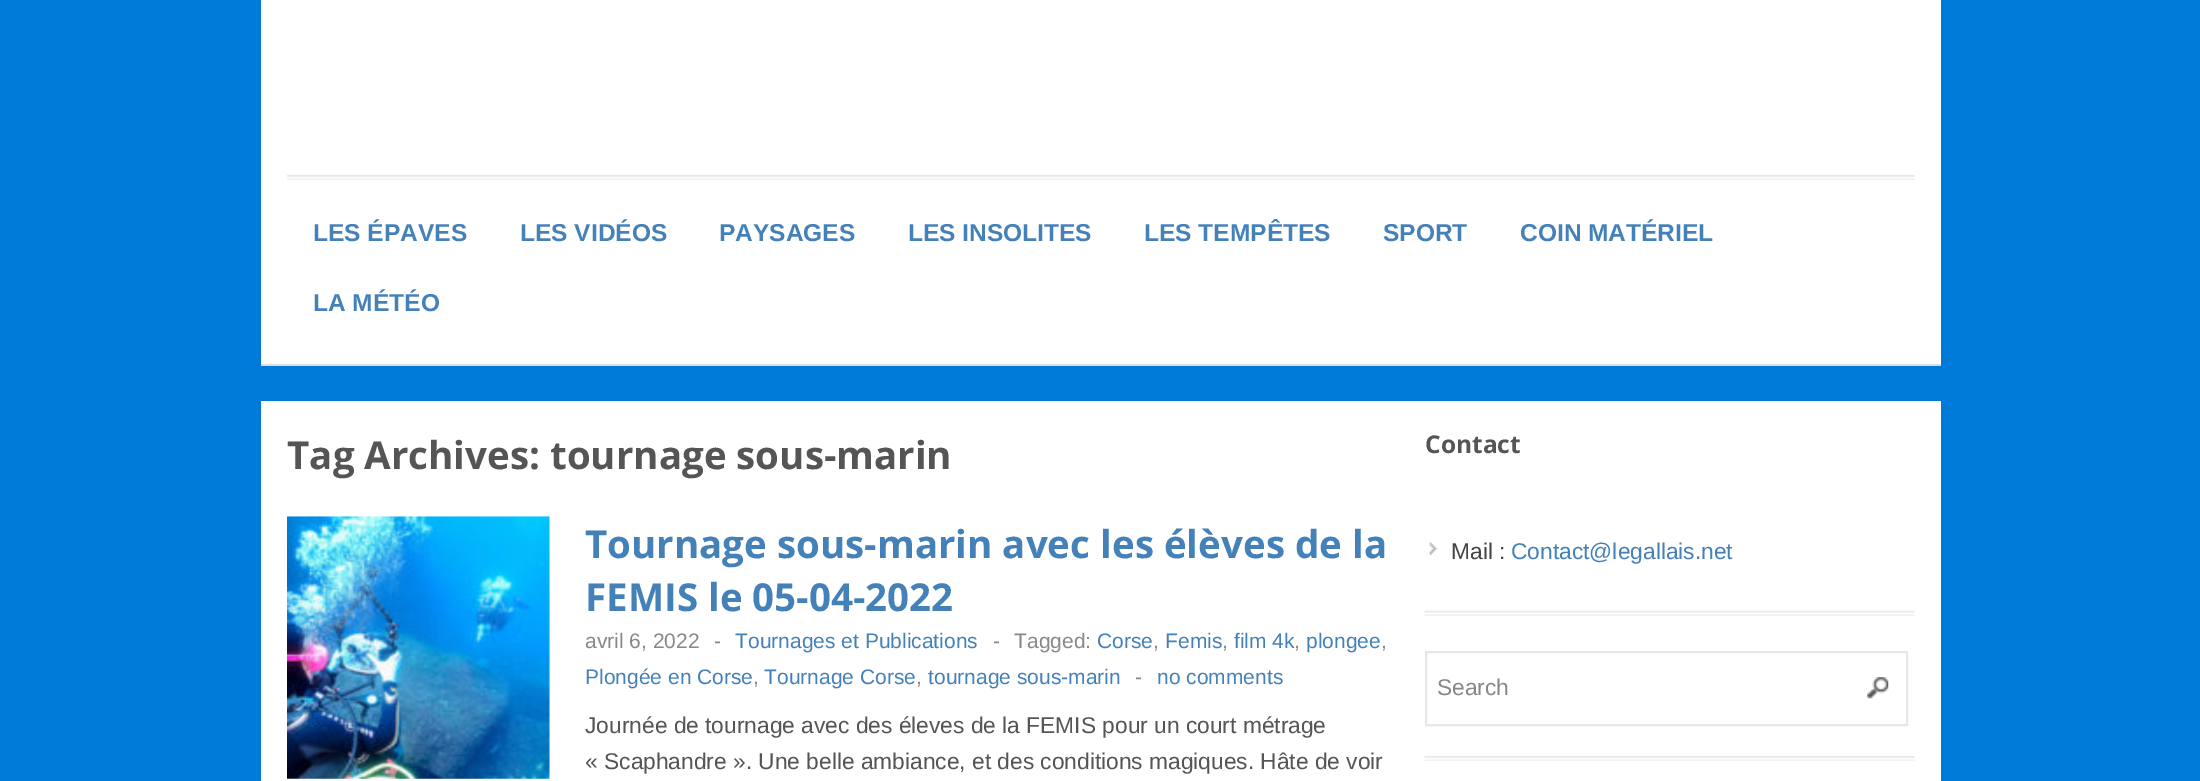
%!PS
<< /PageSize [2200 781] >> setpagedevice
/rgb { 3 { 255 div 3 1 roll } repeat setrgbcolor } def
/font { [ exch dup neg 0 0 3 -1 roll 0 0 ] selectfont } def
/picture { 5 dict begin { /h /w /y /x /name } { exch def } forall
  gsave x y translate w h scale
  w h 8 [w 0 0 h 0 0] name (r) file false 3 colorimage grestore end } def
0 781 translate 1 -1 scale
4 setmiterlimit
0 122 216 rgb
0 0 2200 781 rectfill
255 255 255 rgb
261 0 1680 364 rectfill
221 221 221 rgb
261 364 1680 2 rectfill
(img/1.rgb) 287 175 1628 5 picture
255 255 255 rgb
261 401 1680 380 rectfill
(img/2.rgb) 287 516 263 263 picture
(img/3.rgb) 1424 610 491 6 picture
(img/4.rgb) 1429 542 9 14 picture
(img/5.rgb) 1424 756 491 5 picture
(img/6.rgb) 1867 677 22 22 picture
231 231 231 rgb
2 setlinewidth
1426 652 481 73 rectstroke
/LiberationSans-Bold 24.5 font
69 129 185 rgb
[
  [(LES ÉPAVES) 313 241]
  [(LES VIDÉOS) 520 241]
  [(PAYSAGES) 719 241]
  [(LES INSOLITES) 908 241]
  [(LES TEMPÊTES) 1144 241]
  [(SPORT) 1383 241]
  [(COIN MATÉRIEL) 1520 241]
  [(LA MÉTÉO) 313 311]
] { aload pop moveto show } forall
/OpenSans-Bold 38.5 font
85 85 85 rgb
287 469 moveto (Tag Archives: tournage sous-marin) show
69 129 185 rgb
585 558 moveto (Tournage sous-marin avec les élèves de la) show
585 611 moveto (FEMIS le 05-04-2022) show
/LiberationSans-Regular 21 font
136 136 136 rgb
585 648 moveto (avril 6, 2022) show
714 648 moveto (-) show
69 129 185 rgb
735 648 moveto (Tournages et Publications) show
136 136 136 rgb
993 648 moveto (-) show
1014 648 moveto (Tagged:) show
69 129 185 rgb
[
  [(Corse) 1097 648]
  [(Femis) 1165 648]
  [(film 4k) 1234 648]
  [(plongee) 1306 648]
] { aload pop moveto show } forall
136 136 136 rgb
[
  [(,) 1153 648]
  [(,) 1222 648]
  [(,) 1294 648]
  [(,) 1381 648]
] { aload pop moveto show } forall
69 129 185 rgb
[
  [(Plongée en Corse) 585 684]
  [(Tournage Corse) 764 684]
  [(tournage sous-marin) 928 684]
] { aload pop moveto show } forall
136 136 136 rgb
1135 684 moveto (-) show
69 129 185 rgb
1157 684 moveto (no comments) show
136 136 136 rgb
753 684 moveto (,) show
916 684 moveto (,) show
/LiberationSans-Regular 22.75 font
85 85 85 rgb
585 733 moveto (Journée de tournage avec des éleves de la FEMIS pour un court métrage) show
585 769 moveto (« Scaphandre ». Une belle ambiance, et des conditions magiques. Hâte de voir) show
/OpenSans-Bold 24.5 font
1425 453 moveto (Contact) show
/LiberationSans-Regular 22.75 font
68 68 68 rgb
1451 559 moveto (Mail :) show
69 129 185 rgb
1511 559 moveto (Contact@legallais.net) show
136 136 136 rgb
1437 695 moveto (Search) show
showpage
